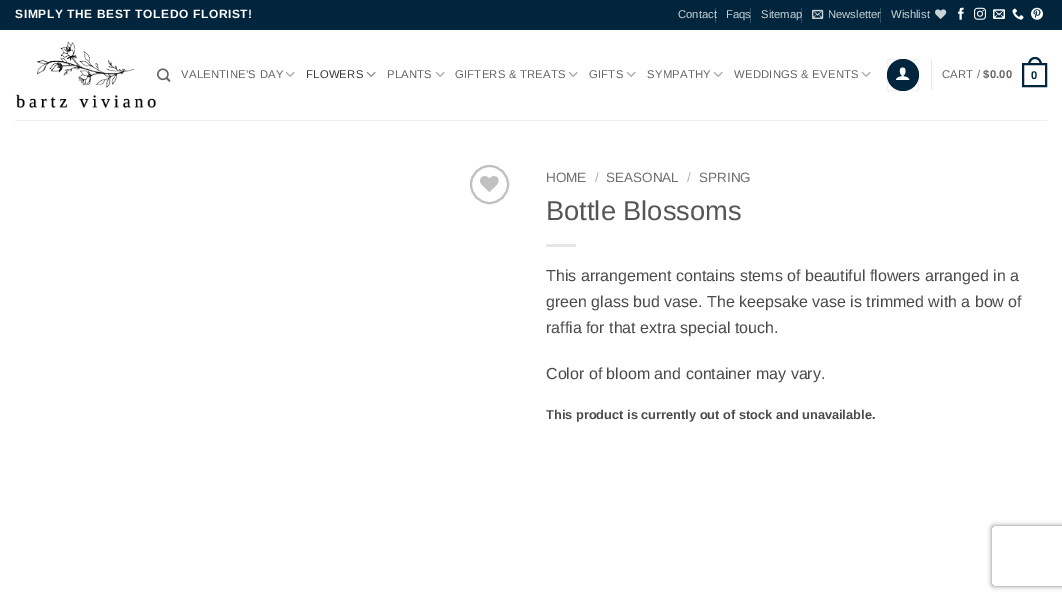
%!PS
<< /PageSize [1062 600] /PageUsesTransparency true >> setpagedevice
/rgb { 3 { 255 div 3 1 roll } repeat setrgbcolor } def
/font { [ exch dup neg 0 0 3 -1 roll 0 0 ] selectfont } def
/alpha { dup .setfillconstantalpha .setstrokeconstantalpha } def
/circle { newpath 0 360 arc closepath } def
/roundrect { 5 dict begin { /r /h /w /y /x } { exch def } forall
  x r add y moveto x w add y 2 copy h add r arct x w add y h add x 1 index r arct
  x y h add x y r arct x y 2 copy exch w add exch r arct closepath end } def
/shadow { 12 dict begin { /a /b /q /h /w /y /x } { exch def } forall gsave /was 0 def
  9 -2 -9 { dup b mul 4 div /e exch def 1 sub .425 mul 2.718 exch exp 1 add a .99 .min exch div /now exch def
    1 1 now sub 1 was sub div sub alpha /was now def
    w h .min e 2 mul add 0 gt { x e sub y e sub w e 2 mul add h e 2 mul add
      q e add b .6 mul add w h .min 2 div e add .min 0 .max roundrect fill } if } for grestore end } def
/picture { 5 dict begin { /h /w /y /x /name } { exch def } forall
  gsave x y translate w h scale
  w h 8 [w 0 0 h 0 0] name (r) file false 3 colorimage grestore end } def
0 .pushpdf14devicefilter
0 600 translate 1 -1 scale
4 setmiterlimit
255 255 255 rgb
0 0 1062 600 rectfill
0 37 61 rgb
0 0 1062 30 rectfill
(img/1.rgb) 812 9 12 10 picture
(img/2.rgb) 935 9 12 10 picture
(img/3.rgb) 958 7 6 13 picture
(img/4.rgb) 974 7 12 13 picture
(img/5.rgb) 993 9 12 10 picture
(img/6.rgb) 1012 8 12 12 picture
(img/7.rgb) 1031 7 12 13 picture
(img/8.rgb) 15 41 141 67 picture
(img/9.rgb) 157 68 14 14 picture
(img/10.rgb) 285 71 10 6 picture
(img/11.rgb) 366 71 10 6 picture
(img/10.rgb) 435 71 10 6 picture
(img/10.rgb) 568 71 10 6 picture
(img/10.rgb) 626 71 10 6 picture
(img/10.rgb) 713 71 10 6 picture
(img/10.rgb) 861 71 10 6 picture
903 75 16 circle fill
0.05 alpha
0 0 0 rgb
887.5 59.5 31 31 rectstroke
1 alpha
(img/12.rgb) 896 67 14 13 picture
230 230 230 rgb
931 60 1 30 rectfill
0 37 61 rgb
2 setlinewidth
1023 64 23 22 rectstroke
1035 57 moveto 1039.5 57 1042 61 1042 65 curveto 1028 65 lineto 1028 61 1030.5 57 1035 57 curveto closepath 1035 59 moveto 1038.5 59 1040 62 1040 65 curveto 1030 65 lineto 1030 62 1031.5 59 1035 59 curveto closepath eofill
237 237 237 rgb
15 120 1032 1 rectfill
192 192 192 rgb
489.5 184.5 18.5 circle stroke
(img/13.rgb) 480 176 19 16 picture
230 230 230 rgb
546 244 30 3 rectfill
gsave
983 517 moveto 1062 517 lineto 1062 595 lineto 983 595 lineto closepath 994 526 moveto 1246 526 lineto 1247 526 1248 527 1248 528 curveto 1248 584 lineto 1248 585 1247 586 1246 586 curveto 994 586 lineto 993 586 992 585 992 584 curveto 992 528 lineto 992 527 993 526 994 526 curveto closepath eoclip newpath
128 128 128 rgb
992 526 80 60 2 2.5 1 shadow
grestore
/LiberationSans-Bold 12 font
255 255 255 rgb
15 18 moveto 0.6 0 (SIMPLY THE BEST TOLEDO FLORIST!) ashow
/LiberationSans-Regular 11.25 font
204 211 216 rgb
678 18 moveto (Contact) show
0.2 alpha
255 255 255 rgb
715 8 1 15 rectfill
1 alpha
204 211 216 rgb
726 18 moveto (Faqs) show
0.2 alpha
255 255 255 rgb
750 8 1 15 rectfill
1 alpha
204 211 216 rgb
761 18 moveto (Sitemap) show
0.2 alpha
255 255 255 rgb
801 8 1 15 rectfill
1 alpha
204 211 216 rgb
828 18 moveto (Newsletter) show
0.2 alpha
255 255 255 rgb
880 8 1 15 rectfill
1 alpha
204 211 216 rgb
891 18 moveto (Wishlist) show
101 101 101 rgb
181 78 moveto 0.25 0 (VALENTINE’S DAY) ashow
54 54 54 rgb
306 78 moveto 0.25 0 (FLOWERS) ashow
101 101 101 rgb
387 78 moveto 0.25 0 (PLANTS) ashow
455 78 moveto 0.25 0 (GIFTERS & TREATS) ashow
589 78 moveto 0.25 0 (GIFTS) ashow
647 78 moveto 0.25 0 (SYMPATHY) ashow
734 78 moveto 0.25 0 (WEDDINGS & EVENTS) ashow
942 78 moveto 0.25 0 (CART /) ashow
/LiberationSans-Bold 11.25 font
983 78 moveto 0.25 0 ($0.00) ashow
0 37 61 rgb
1031 79 moveto 0.25 0 (0) ashow
/LiberationSans-Regular 13.5 font
110 110 110 rgb
546 182 moveto (HOME) show
178 178 178 rgb
595 182 moveto (/) show
110 110 110 rgb
606 182 moveto (SEASONAL) show
178 178 178 rgb
687 182 moveto (/) show
110 110 110 rgb
699 182 moveto (SPRING) show
/LiberationSans-Regular 27.25 font
85 85 85 rgb
546 220 moveto (Bottle Blossoms) show
/LiberationSans-Regular 16 font
74 74 74 rgb
[
  [(This arrangement contains stems of beautiful flowers arranged in a) 546 281]
  [(green glass bud vase. The keepsake vase is trimmed with a bow of) 546 307]
  [(raffia for that extra special touch.) 546 333]
  [(Color of bloom and container may vary.) 546 379]
] { aload pop moveto show } forall
/LiberationSans-Bold 12.8 font
546 419 moveto (This product is currently out of stock and unavailable.) show
.poppdf14devicefilter showpage
